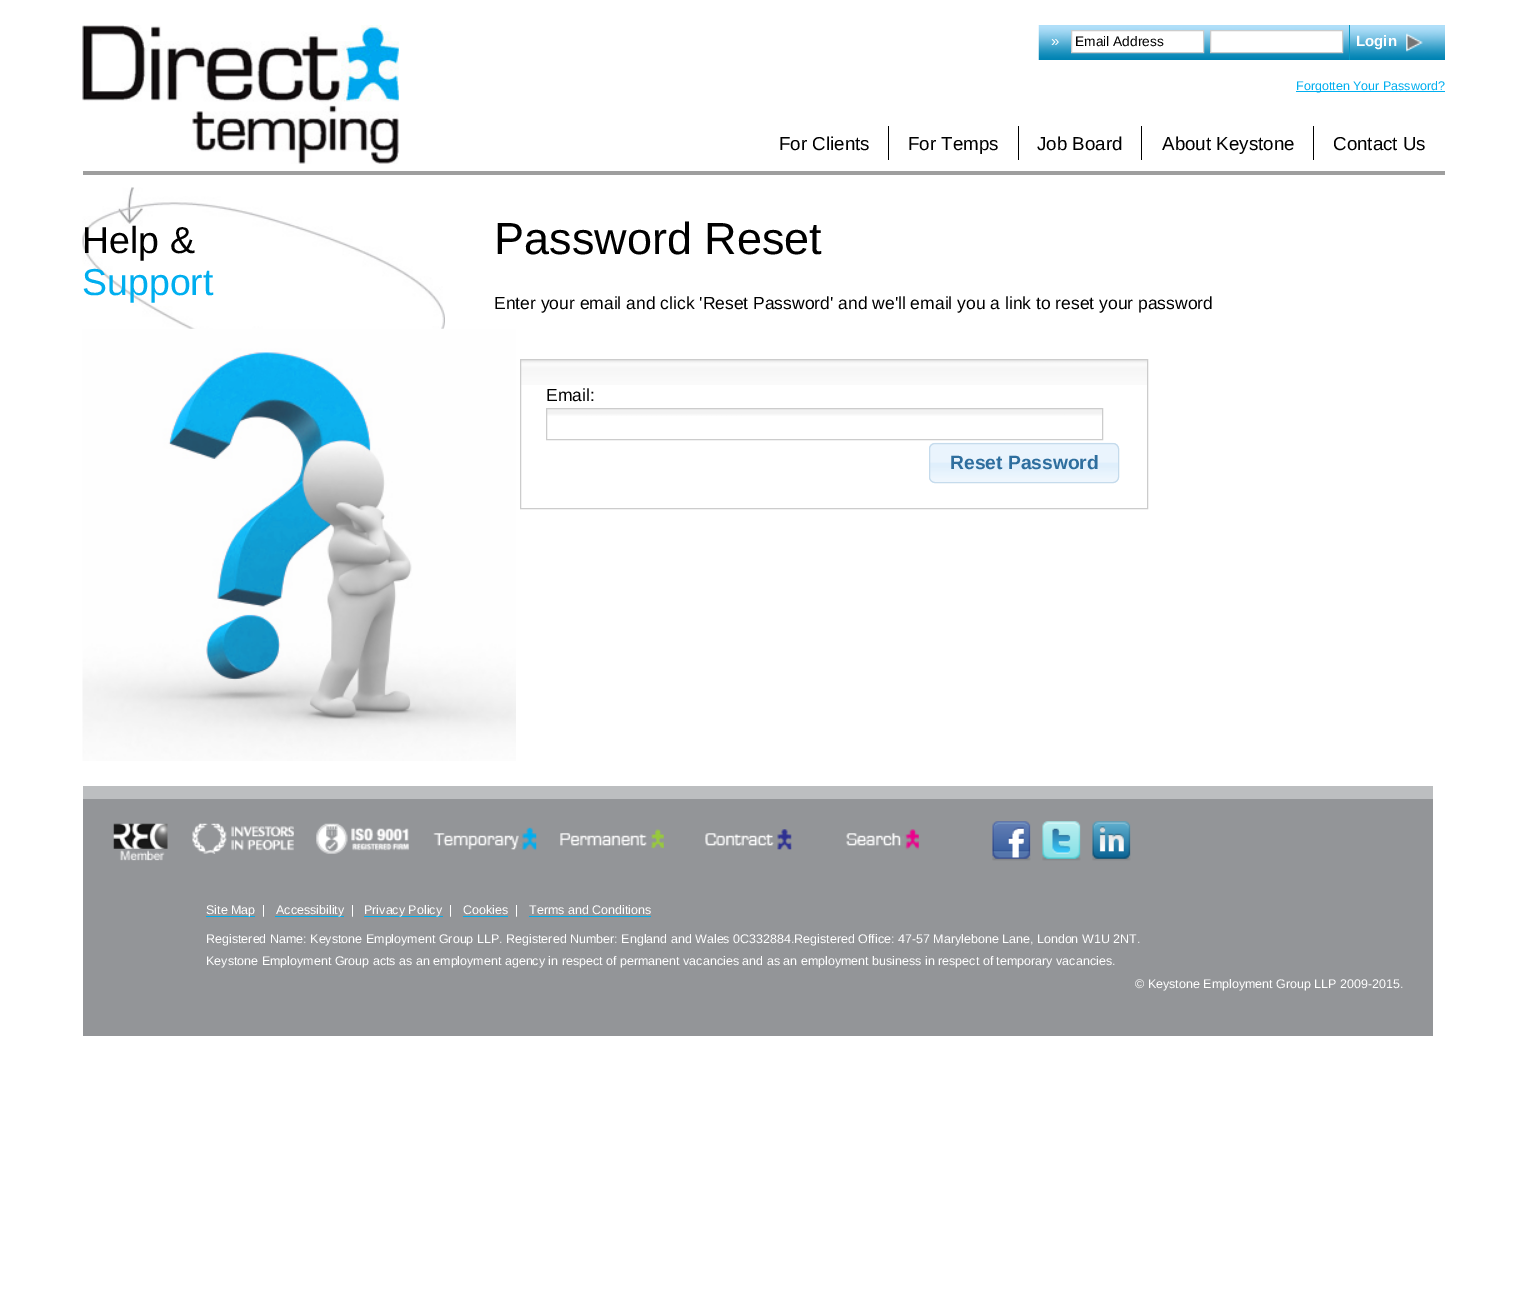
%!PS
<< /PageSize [1526 1316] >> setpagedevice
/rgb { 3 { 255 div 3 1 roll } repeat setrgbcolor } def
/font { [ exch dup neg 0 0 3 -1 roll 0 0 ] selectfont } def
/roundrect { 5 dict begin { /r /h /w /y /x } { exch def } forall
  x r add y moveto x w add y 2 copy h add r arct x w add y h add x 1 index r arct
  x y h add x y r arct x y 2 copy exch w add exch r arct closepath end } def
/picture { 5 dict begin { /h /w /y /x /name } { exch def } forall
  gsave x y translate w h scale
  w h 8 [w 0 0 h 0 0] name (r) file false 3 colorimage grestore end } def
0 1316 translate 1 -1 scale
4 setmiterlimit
255 255 255 rgb
0 0 1526 1316 rectfill
158 158 158 rgb
83 171 1362 4 rectfill
(img/1.rgb) 82 25 317 139 picture
(img/2.rgb) 1038 25 407 35 picture
255 255 255 rgb
1071.5 30.5 moveto 1203.5 30.5 lineto 1203.5 52.5 lineto 1071.5 52.5 lineto closepath gsave fill grestore
204 204 204 rgb
stroke
255 255 255 rgb
1210.5 30.5 moveto 1342.5 30.5 lineto 1342.5 52.5 lineto 1210.5 52.5 lineto closepath gsave fill grestore
204 204 204 rgb
stroke
(img/3.rgb) 1406 33 17 19 picture
[
  [1349 25 1 35 5 152 196]
  [1296 91 149 1 0 174 239]
  [888 126 1 34 0 0 0]
  [1018 126 1 34 0 0 0]
  [1141 126 1 34 0 0 0]
  [1313 126 1 34 0 0 0]
] { aload pop rgb rectfill } forall
(img/4.rgb) 82 187 363 196 picture
(img/5.rgb) 82 328 434 433 picture
(img/6.rgb) 521 360 626 25 picture
204 204 204 rgb
520.5 359.5 627 149 rectstroke
(img/7.rgb) 547 409 555 7 picture
546.5 408.5 556 31 rectstroke
(img/8.rgb) 929 442 190 41 picture
197 219 236 rgb
929.5 443.5 189 39 5.5 roundrect stroke
147 149 152 rgb
83 799 1350 237 rectfill
188 190 192 rgb
83 786 1350 13 rectfill
(img/9.rgb) 113 823 296 38 picture
(img/10.rgb) 433 827 104 24 picture
(img/11.rgb) 560 829 104 20 picture
(img/12.rgb) 705 829 87 21 picture
(img/13.rgb) 846 829 73 21 picture
(img/14.rgb) 992 821 39 40 picture
(img/15.rgb) 1042 821 39 40 picture
(img/16.rgb) 1092 821 39 40 picture
[
  [206 916 49 1 0 174 239]
  [275 916 69 1 0 174 239]
  [364 916 79 1 0 174 239]
  [463 916 45 1 0 174 239]
  [529 916 122 1 0 174 239]
] { aload pop rgb rectfill } forall
/LiberationSans-Regular 15 font
255 255 255 rgb
1051 46 moveto (») show
/LiberationSans-Regular 13.75 font
0 0 0 rgb
1075 46 moveto (Email Address) show
/LiberationSans-Bold 15 font
255 255 255 rgb
1356 46 moveto (Login) show
/LiberationSans-Regular 12.5 font
0 174 239 rgb
1296 90 moveto (Forgotten Your Password?) show
/LiberationSans-Regular 18.75 font
0 0 0 rgb
[
  [(For Clients) 779 150]
  [(For Temps) 908 150]
  [(Job Board) 1037 150]
  [(About Keystone) 1162 150]
  [(Contact Us) 1333 150]
] { aload pop moveto show } forall
/LiberationSans-Regular 37.5 font
82 253 moveto (Help &) show
0 174 239 rgb
82 295 moveto (Support) show
/LiberationSans-Regular 45 font
0 0 0 rgb
494 254 moveto (Password Reset) show
/LiberationSans-Regular 17.5 font
494 309 moveto (Enter your email and click 'Reset Password' and we'll email you a link to reset your password) show
546 401 moveto (Email:) show
/LiberationSans-Bold 19.25 font
46 110 158 rgb
950 469 moveto (Reset Password) show
/LiberationSans-Regular 12.5 font
255 255 255 rgb
[
  [(Site Map) 206 914]
  [(|) 262 914]
  [(Accessibility) 276 914]
  [(|) 351 914]
  [(Privacy Policy) 364 914]
  [(|) 449 914]
  [(Cookies) 463 914]
  [(|) 515 914]
  [(Terms and Conditions) 529 914]
  [(Registered Name: Keystone Employment Group LLP. Registered Number: England and Wales 0C332884.Registered Office: 47-57 Marylebone Lane, London W1U 2NT.) 206 943]
  [(Keystone Employment Group acts as an employment agency in respect of permanent vacancies and as an employment business in respect of temporary vacancies.) 206 965]
  [(© Keystone Employment Group LLP 2009-2015.) 1135 988]
] { aload pop moveto show } forall
showpage
